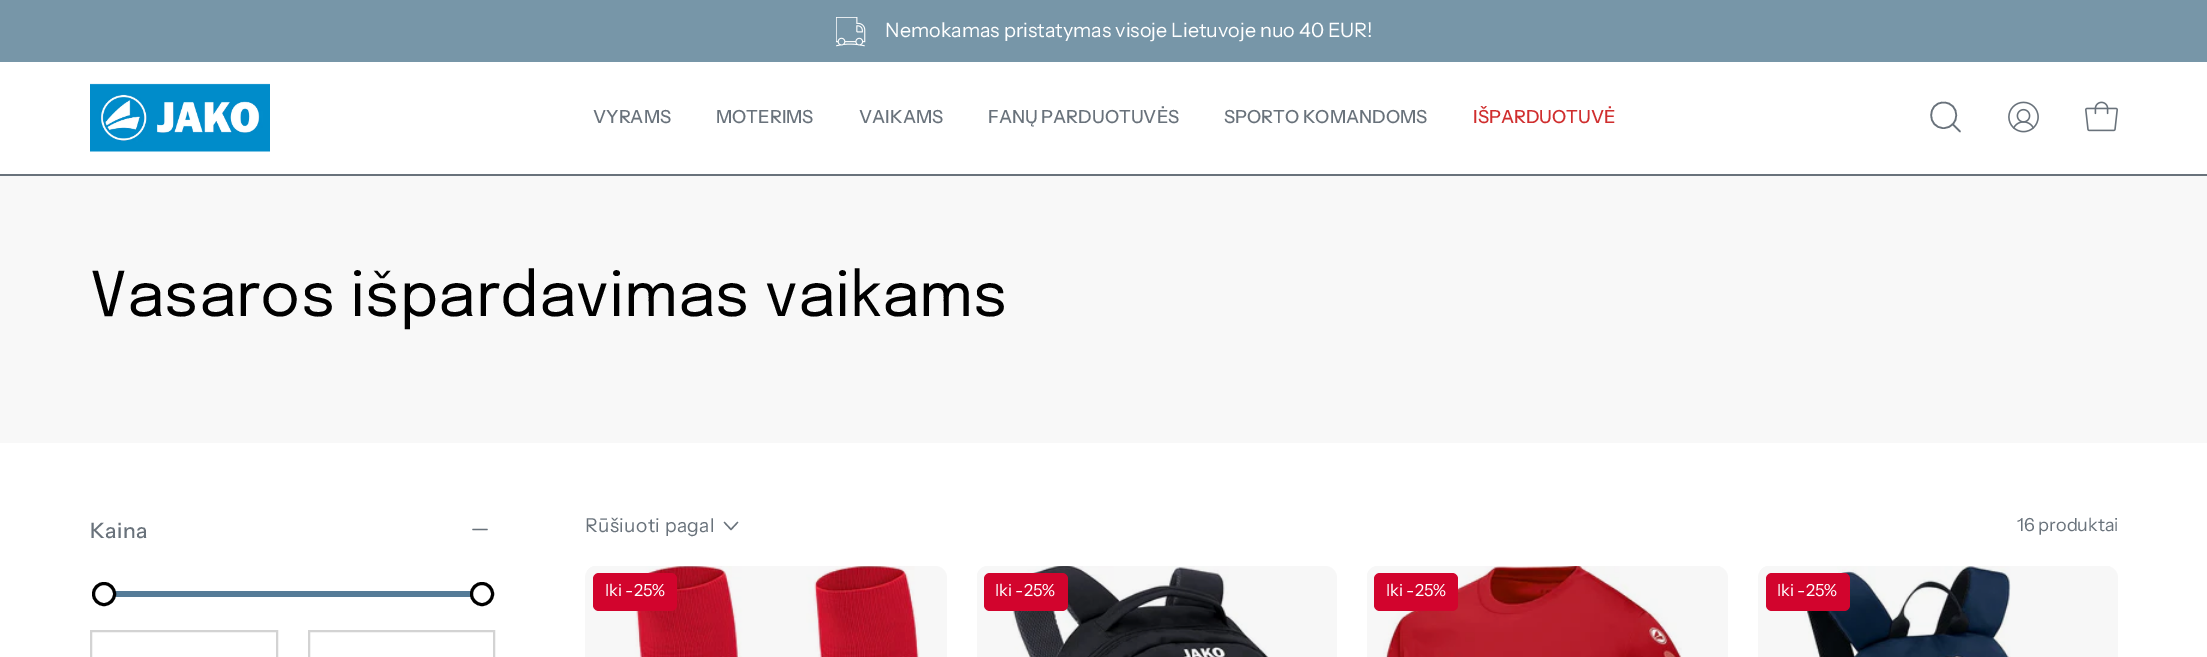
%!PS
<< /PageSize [2207 657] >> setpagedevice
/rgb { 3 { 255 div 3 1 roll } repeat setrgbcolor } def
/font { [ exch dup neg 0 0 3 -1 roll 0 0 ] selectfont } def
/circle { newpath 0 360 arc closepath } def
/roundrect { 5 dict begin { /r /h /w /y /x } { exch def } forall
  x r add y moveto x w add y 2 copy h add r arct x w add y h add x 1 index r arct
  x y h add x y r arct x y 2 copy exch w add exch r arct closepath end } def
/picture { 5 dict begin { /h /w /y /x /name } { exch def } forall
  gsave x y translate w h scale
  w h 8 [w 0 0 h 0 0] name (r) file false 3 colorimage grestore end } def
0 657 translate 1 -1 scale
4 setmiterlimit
255 255 255 rgb
0 0 2207 657 rectfill
119 150 168 rgb
0 0 2207 62 rectfill
(img/1.rgb) 836 17 30 30 picture
105 114 123 rgb
0 174 2207 2 rectfill
(img/2.rgb) 90 83 180 69 picture
1.6 setlinewidth
1 setlinecap
1 setlinejoin
1943.5 128 moveto 1960.5 128 1960.5 102.5 1943.5 102.5 curveto 1927 102.5 1927 128 1943.5 128 curveto closepath 1952.5 124 moveto 1960 131.5 lineto stroke
(img/3.rgb) 2008 101 31 32 picture
(img/4.rgb) 2085 101 33 31 picture
248 248 248 rgb
0 176 2207 267 rectfill
105 114 123 rgb
1.3 setlinewidth
487 529.5 moveto 473 529.5 lineto stroke
85 123 151 rgb
115 591 356 6 rectfill
255 255 255 rgb
104 594 10.5 circle gsave fill grestore
0 0 0 rgb
3 setlinewidth
0 setlinecap
0 setlinejoin
stroke
255 255 255 rgb
482 594 10.5 circle gsave fill grestore
0 0 0 rgb
stroke
211 211 211 rgb
2 setlinewidth
91 631 186 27 rectstroke
309 631 185 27 rectstroke
105 114 123 rgb
1.3 setlinewidth
1 setlinecap
1 setlinejoin
737.5 522.5 moveto 731 529.5 lineto 724.5 522.5 lineto stroke
(img/6.rgb) 587 566 10 6 picture
247 247 247 rgb
585 566 362 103 12 roundrect fill
(img/5.rgb) 634 566 286 91 picture
210 4 45 rgb
593 573 84 38 6 roundrect fill
(img/7.rgb) 977 566 12 12 picture
247 247 247 rgb
977 566 360 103 12 roundrect fill
(img/8.rgb) 1012 566 257 91 picture
210 4 45 rgb
984 573 84 38 6 roundrect fill
(img/9.rgb) 1367 566 353 12 picture
247 247 247 rgb
1367 566 361 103 12 roundrect fill
(img/10.rgb) 1383 566 299 91 picture
210 4 45 rgb
1374 573 84 38 6 roundrect fill
(img/12.rgb) 1760 566 350 6 picture
247 247 247 rgb
1758 566 360 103 12 roundrect fill
(img/11.rgb) 1804 566 207 91 picture
210 4 45 rgb
1766 573 84 38 6 roundrect fill
/InstrumentSans-Regular 19.8 font
255 255 255 rgb
885 37 moveto (Nemokamas pristatymas visoje Lietuvoje nuo 40 EUR!) show
/InstrumentSans-Medium 18 font
105 114 123 rgb
[
  [(VYRAMS) 593 123]
  [(MOTERIMS) 716 123]
  [(VAIKAMS) 859 123]
  [(FANŲ PARDUOTUVĖS) 988 123]
  [(SPORTO KOMANDOMS) 1224 123]
] { aload pop moveto show } forall
208 46 46 rgb
1473 123 moveto (IŠPARDUOTUVĖ) show
/Epilogue-Regular 61.25 font
0 0 0 rgb
90 316 moveto (Vasaros išpardavimas vaikams) show
/InstrumentSans-Medium 21 font
105 114 123 rgb
90 538 moveto 0.5 0 (Kaina) ashow
/InstrumentSans-Regular 19.25 font
585 532 moveto 0.4 0 (Rūšiuoti pagal) ashow
/InstrumentSans-Regular 18 font
2017 531 moveto (16 produktai) show
/InstrumentSans-Regular 16.5 font
255 255 255 rgb
[
  [(Iki -25%) 605 596]
  [(Iki -25%) 995 596]
  [(Iki -25%) 1386 596]
  [(Iki -25%) 1777 596]
] { aload pop moveto show } forall
showpage
